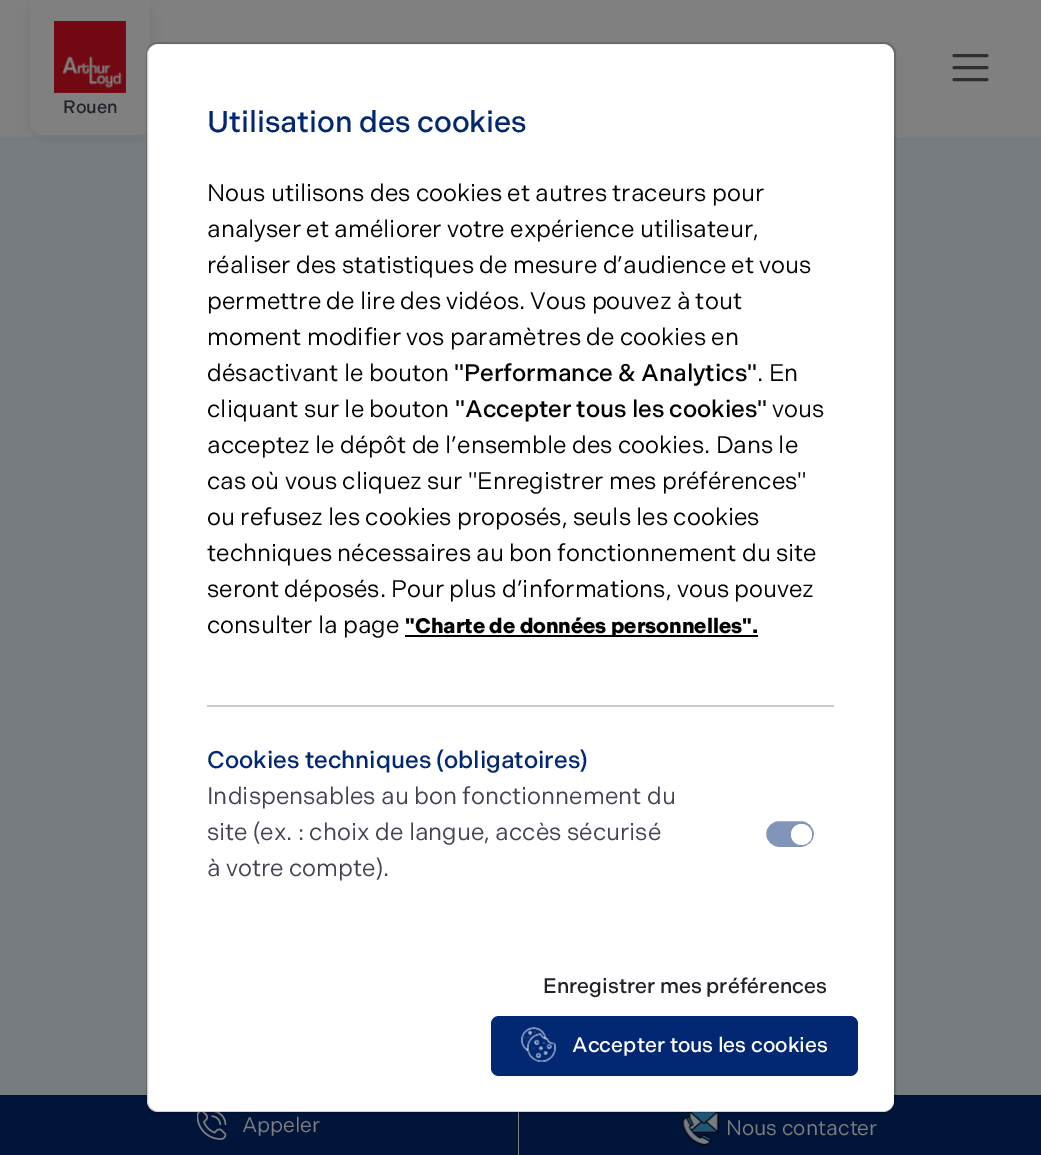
%!PS
<< /PageSize [1041 1155] /PageUsesTransparency true >> setpagedevice
/rgb { 3 { 255 div 3 1 roll } repeat setrgbcolor } def
/font { [ exch dup neg 0 0 3 -1 roll 0 0 ] selectfont } def
/alpha { dup .setfillconstantalpha .setstrokeconstantalpha } def
/circle { newpath 0 360 arc closepath } def
/roundrect { 5 dict begin { /r /h /w /y /x } { exch def } forall
  x r add y moveto x w add y 2 copy h add r arct x w add y h add x 1 index r arct
  x y h add x y r arct x y 2 copy exch w add exch r arct closepath end } def
/shadow { 12 dict begin { /a /b /q /h /w /y /x } { exch def } forall gsave /was 0 def
  9 -2 -9 { dup b mul 4 div /e exch def 1 sub .425 mul 2.718 exch exp 1 add a .99 .min exch div /now exch def
    1 1 now sub 1 was sub div sub alpha /was now def
    w h .min e 2 mul add 0 gt { x e sub y e sub w e 2 mul add h e 2 mul add
      q e add b .6 mul add w h .min 2 div e add .min 0 .max roundrect fill } if } for grestore end } def
/picture { 5 dict begin { /h /w /y /x /name } { exch def } forall
  gsave x y translate w h scale
  w h 8 [w 0 0 h 0 0] name (r) file false 3 colorimage grestore end } def
0 .pushpdf14devicefilter
0 1155 translate 1 -1 scale
4 setmiterlimit
119 124 128 rgb
0 0 1041 1155 rectfill
128 128 128 rgb
0 0 1041 137 rectfill
45 46 48 rgb
3 setlinewidth
1 setlinecap
954 55.5 moveto 987 55.5 lineto 954 67.5 moveto 987 67.5 lineto 954 79.5 moveto 987 79.5 lineto stroke
0 0 0 rgb
30 3 120 135 12 6 0.1 shadow
128 128 128 rgb
30 0 moveto 150 0 lineto 150 123 lineto 150 129.5 144.5 135 138 135 curveto 42 135 lineto 35.5 135 30 129.5 30 123 curveto closepath fill
(img/1.rgb) 54 21 72 72 picture
1 20 58 rgb
0 1095 518 60 rectfill
519 1095 522 60 rectfill
255 255 255 rgb
147 44 747 1068 11 roundrect fill
128 128 128 rgb
518 1112 1 43 rectfill
(img/3.rgb) 197 1112 30 28 picture
(img/4.rgb) 682 1112 37 33 picture
0.18 alpha
0 0 0 rgb
2 setlinewidth
0 setlinecap
147 43 748 1069 11 roundrect stroke
1 alpha
405 635 353 2 rectfill
200 201 202 rgb
207 705 627 2 rectfill
129 148 185 rgb
765 820 50 28 14 roundrect gsave fill grestore
255 255 255 rgb
stroke
801.5 834.5 10.5 circle fill
2 40 115 rgb
491 1016 367 60 8 roundrect fill
(img/2.rgb) 521 1027 35 35 picture
/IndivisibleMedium-Medium 18 font
34 33 42 rgb
63 113 moveto (Rouen) show
/IndivisibleMedium-Medium 30 font
2 40 115 rgb
207 132 moveto (Utilisation des cookies) show
/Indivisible-Regular 24 font
0 0 0 rgb
[
  [(Nous utilisons des cookies et autres traceurs pour) 207 201]
  [(analyser et améliorer votre expérience utilisateur,) 207 237]
  [(réaliser des statistiques de mesure d’audience et vous) 207 273]
  [(permettre de lire des vidéos. Vous pouvez à tout) 207 309]
  [(moment modifier vos paramètres de cookies en) 207 345]
  [(désactivant le bouton) 207 381]
] { aload pop moveto show } forall
/IndivisibleMedium-Medium 24 font
454 381 moveto ("Performance & Analytics") show
/Indivisible-Regular 24 font
757 381 moveto (. En) show
207 417 moveto (cliquant sur le bouton) show
/IndivisibleMedium-Medium 24 font
455 417 moveto ("Accepter tous les cookies") show
/Indivisible-Regular 24 font
[
  [(vous) 772 417]
  [(acceptez le dépôt de l’ensemble des cookies. Dans le) 207 453]
  [(cas où vous cliquez sur "Enregistrer mes préférences") 207 489]
  [(ou refusez les cookies proposés, seuls les cookies) 207 525]
  [(techniques nécessaires au bon fonctionnement du site) 207 561]
  [(seront déposés. Pour plus d’informations, vous pouvez) 207 597]
  [(consulter la page) 207 633]
] { aload pop moveto show } forall
/Indivisible-Bold 21 font
405 633 moveto ("Charte de données personnelles".) show
/IndivisibleMedium-Medium 24 font
2 40 115 rgb
207 768 moveto (Cookies techniques \(obligatoires\)) show
/Indivisible-Regular 24 font
68 65 83 rgb
[
  [(Indispensables au bon fonctionnement du) 207 804]
  [(site \(ex. : choix de langue, accès sécurisé) 207 840]
  [(à votre compte\).) 207 876]
] { aload pop moveto show } forall
/IndivisibleMedium-Medium 21 font
34 33 42 rgb
543 993 moveto (Enregistrer mes préférences) show
255 255 255 rgb
572 1052 moveto (Accepter tous les cookies) show
/Indivisible-Regular 21 font
128 128 128 rgb
242 1132 moveto (Appeler) show
726 1135 moveto (Nous contacter) show
.poppdf14devicefilter showpage
